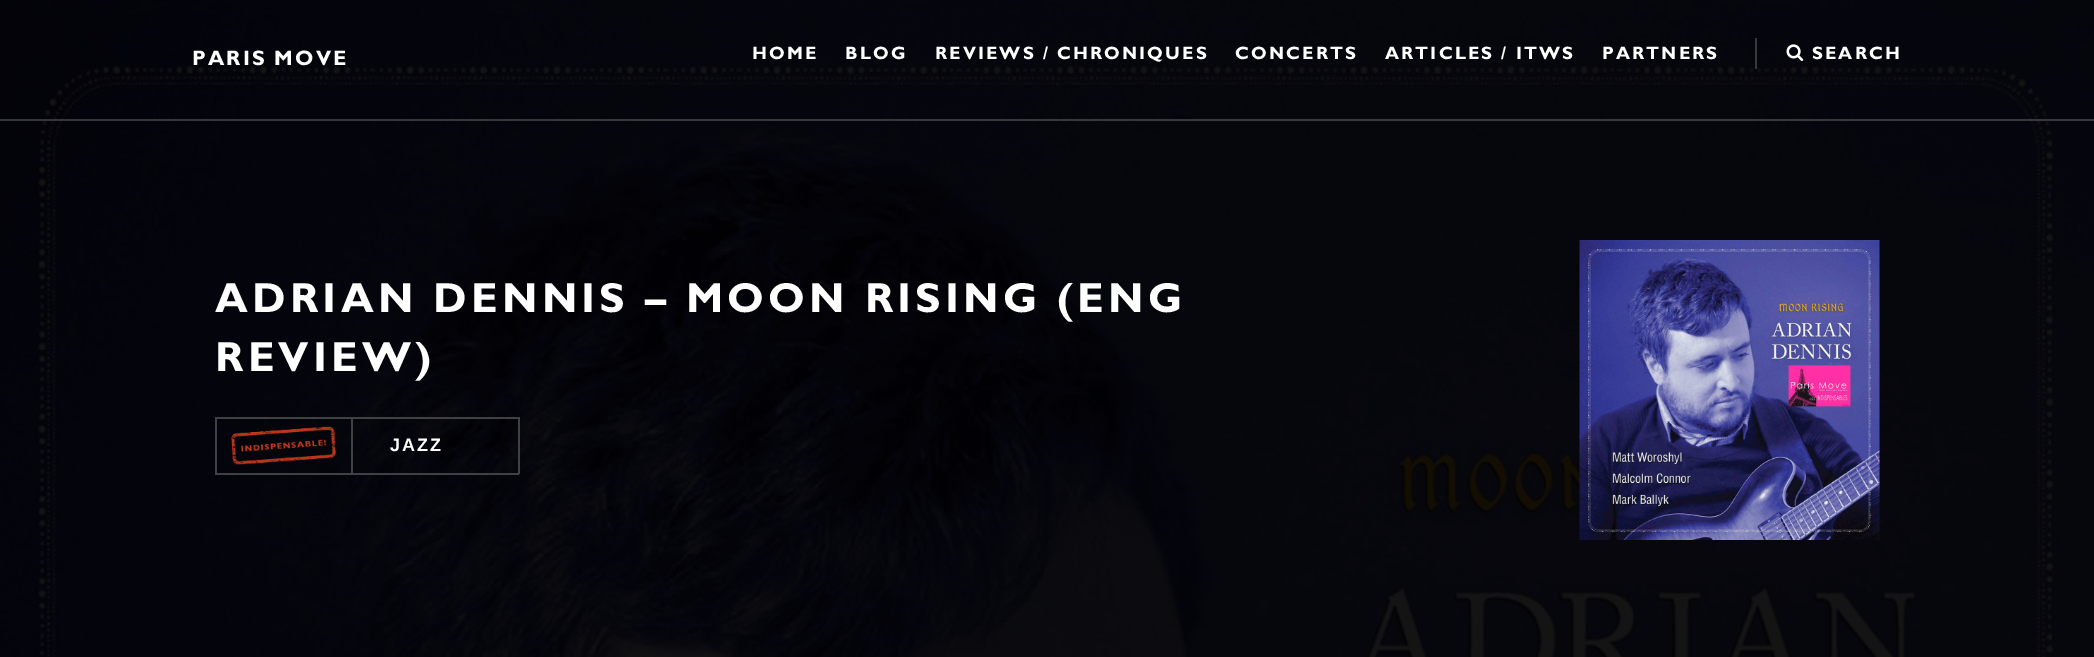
%!PS
<< /PageSize [2094 657] /PageUsesTransparency true >> setpagedevice
/rgb { 3 { 255 div 3 1 roll } repeat setrgbcolor } def
/font { [ exch dup neg 0 0 3 -1 roll 0 0 ] selectfont } def
/alpha { dup .setfillconstantalpha .setstrokeconstantalpha } def
/picture { 5 dict begin { /h /w /y /x /name } { exch def } forall
  gsave x y translate w h scale
  w h 8 [w 0 0 h 0 0] name (r) file false 3 colorimage grestore end } def
0 .pushpdf14devicefilter
0 657 translate 1 -1 scale
4 setmiterlimit
0 0 0 rgb
0 0 2094 657 rectfill
(img/2.rgb) 0 0 2094 657 picture
0.2 alpha
255 255 255 rgb
0 119 2094 2 rectfill
1755 38 2 31 rectfill
1 alpha
(img/1.rgb) 1786 44 18 17 picture
[
  [215 417 304 2 65 65 67]
  [518 417 2 57 65 65 67]
  [215 473 304 2 65 65 67]
  [215 417 2 57 65 65 67]
  [351 417 2 57 65 65 67]
] { aload pop rgb rectfill } forall
(img/3.rgb) 231 426 105 39 picture
(img/4.rgb) 1579 240 301 300 picture
/GillSans-Bold 21 font
255 255 255 rgb
192 65 moveto 2.1 0 (PARIS MOVE) ashow
/GillSans-Bold 18 font
752 59 moveto 2.1 0 (HOME) ashow
845 59 moveto 2.1 0 (BLOG) ashow
935 59 moveto 2.1 0 (REVIEWS / CHRONIQUES) ashow
1235 59 moveto 2.1 0 (CONCERTS) ashow
1385 59 moveto 2.1 0 (ARTICLES / ITWS) ashow
1602 59 moveto 2.1 0 (PARTNERS) ashow
1812 59 moveto 2.1 0 (SEARCH) ashow
/GillSans-Bold 42 font
215 312 moveto 4.2 0 (ADRIAN DENNIS – MOON RISING \(ENG) ashow
215 371 moveto 4.2 0 (REVIEW\)) ashow
/LiberationSans-Bold 18 font
390 451 moveto 2 0 (JAZZ) ashow
.poppdf14devicefilter showpage
